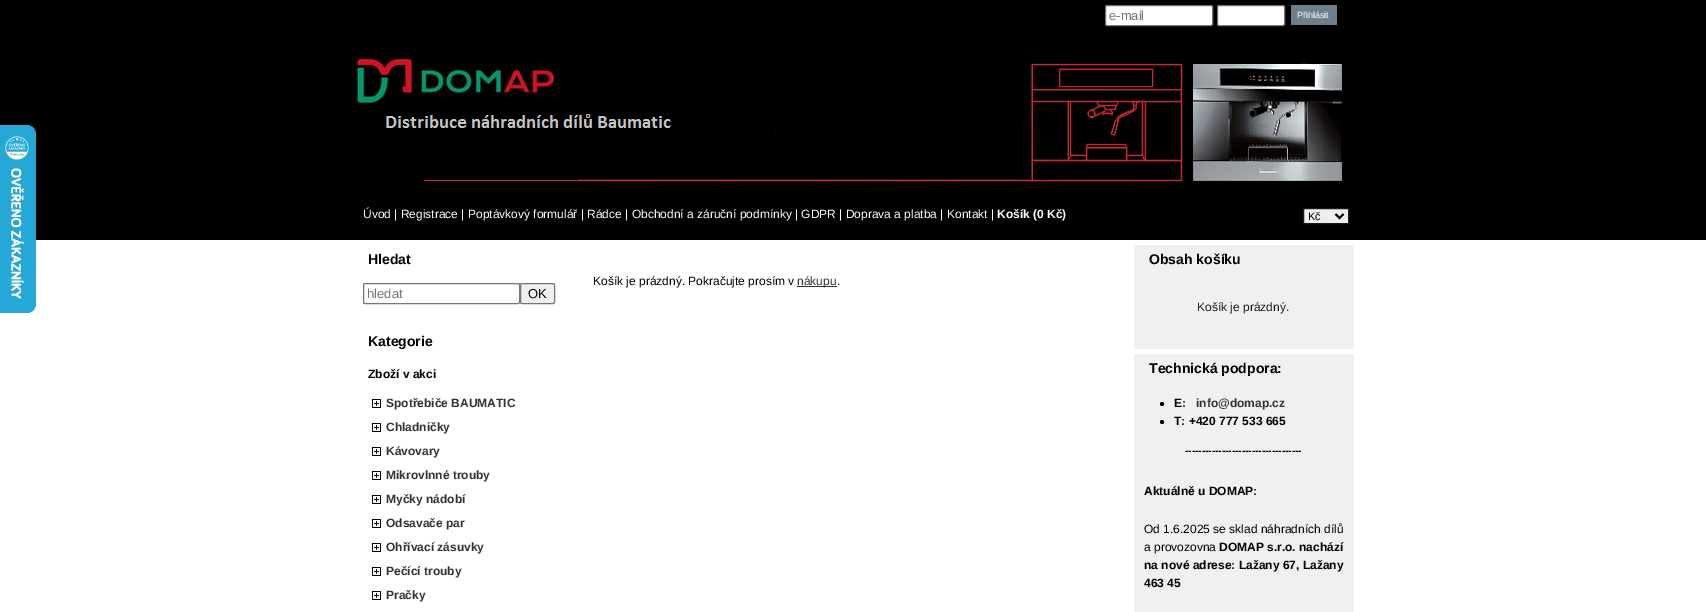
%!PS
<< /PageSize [1706 612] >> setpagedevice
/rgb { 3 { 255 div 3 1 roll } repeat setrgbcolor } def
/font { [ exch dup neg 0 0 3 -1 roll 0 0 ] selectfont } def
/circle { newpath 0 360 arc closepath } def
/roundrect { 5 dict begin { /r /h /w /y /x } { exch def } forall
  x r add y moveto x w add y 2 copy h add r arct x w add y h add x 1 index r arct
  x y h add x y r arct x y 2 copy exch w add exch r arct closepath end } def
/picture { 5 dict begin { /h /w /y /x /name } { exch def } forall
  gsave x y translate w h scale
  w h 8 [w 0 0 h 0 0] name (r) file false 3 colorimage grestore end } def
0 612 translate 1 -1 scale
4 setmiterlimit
255 255 255 rgb
0 0 1706 612 rectfill
0 0 0 rgb
0 0 1706 240 rectfill
(img/1.rgb) 0 125 36 188 picture
(img/2.rgb) 353 0 1001 200 picture
255 255 255 rgb
1105.5 5.5 107 20 1.5 roundrect gsave fill grestore
118 118 118 rgb
stroke
255 255 255 rgb
1217.5 5.5 67 20 1.5 roundrect gsave fill grestore
118 118 118 rgb
stroke
109 127 139 rgb
1291 5 46 20 rectfill
239 239 239 rgb
1303.5 208.5 moveto 1348.5 208.5 lineto 1348.5 223.5 lineto 1303.5 223.5 lineto closepath gsave fill grestore
27 27 27 rgb
stroke
0 0 0 rgb
2 setlinewidth
1335.5 214 moveto 1339.5 218 lineto 1343.5 214 lineto stroke
118 118 118 rgb
1 setlinewidth
363.5 283.5 156 20 1.5 roundrect stroke
239 239 239 rgb
520.5 283.5 34 20 1.5 roundrect gsave fill grestore
118 118 118 rgb
stroke
(img/3.rgb) 372 399 9 9 picture
(img/3.rgb) 372 423 9 9 picture
(img/3.rgb) 372 447 9 9 picture
(img/3.rgb) 372 471 9 9 picture
(img/3.rgb) 372 495 9 9 picture
(img/3.rgb) 372 519 9 9 picture
(img/3.rgb) 372 543 9 9 picture
(img/3.rgb) 372 567 9 9 picture
(img/3.rgb) 372 591 9 9 picture
[
  [797 286 40 1 51 51 51]
  [1134 245 220 367 240 240 240]
  [1134 349 220 5 255 255 255]
] { aload pop rgb rectfill } forall
0 0 0 rgb
1162 404 2 circle fill
1162 422 2 circle fill
/LiberationSans-Regular 13 font
117 117 117 rgb
1109 20 moveto (e-mail) show
/LiberationSans-Regular 9 font
255 255 255 rgb
1297 18 moveto (Přihlásit) show
/LiberationSans-Regular 12 font
363 218 moveto (Úvod | Registrace | Poptávkový formulář | Rádce | Obchodní a záruční podmínky | GDPR | Doprava a platba | Kontakt |) show
/LiberationSans-Bold 12 font
997 218 moveto (Košík \(0 Kč\)) show
/LiberationSans-Regular 11 font
0 0 0 rgb
1308 220 moveto (Kč) show
/LiberationSans-Bold 14 font
368 264 moveto (Hledat) show
/LiberationSans-Regular 13 font
117 117 117 rgb
367 298 moveto (hledat) show
0 0 0 rgb
528 298 moveto (OK) show
/LiberationSans-Bold 14 font
368 346 moveto (Kategorie) show
/LiberationSans-Bold 12 font
368 378 moveto (Zboží v akci) show
51 51 51 rgb
[
  [(Spotřebiče BAUMATIC) 386 407]
  [(Chladničky) 386 431]
  [(Kávovary) 386 455]
  [(Mikrovlnné trouby) 386 479]
  [(Myčky nádobí) 386 503]
  [(Odsavače par) 386 527]
  [(Ohřívací zásuvky) 386 551]
  [(Pečící trouby) 386 575]
  [(Pračky) 386 599]
] { aload pop moveto show } forall
/LiberationSans-Regular 12 font
0 0 0 rgb
593 285 moveto (Košík je prázdný. Pokračujte prosím v) show
51 51 51 rgb
797 285 moveto (nákupu) show
0 0 0 rgb
837 285 moveto (.) show
/LiberationSans-Bold 14 font
1149 264 moveto (Obsah košíku) show
/LiberationSans-Regular 12 font
27 27 27 rgb
1197 311 moveto (Košík je prázdný.) show
/LiberationSans-Bold 14 font
0 0 0 rgb
1149 373 moveto (Technická podpora:) show
/LiberationSans-Bold 12 font
1174 407 moveto (E:) show
51 51 51 rgb
1196 407 moveto (info@domap.cz) show
0 0 0 rgb
1174 425 moveto (T: +420 777 533 665) show
/LiberationSans-Bold 10 font
1185 454 moveto (-----------------------------------) show
/LiberationSans-Bold 12 font
1144 495 moveto (Aktuálně u DOMAP:) show
/LiberationSans-Regular 12 font
1144 533 moveto (Od 1.6.2025 se sklad náhradních dílů) show
1144 551 moveto (a provozovna) show
/LiberationSans-Bold 12 font
[
  [(DOMAP s.r.o. nachází) 1219 551]
  [(na nové adrese: Lažany 67, Lažany) 1144 569]
  [(463 45) 1144 587]
] { aload pop moveto show } forall
showpage
